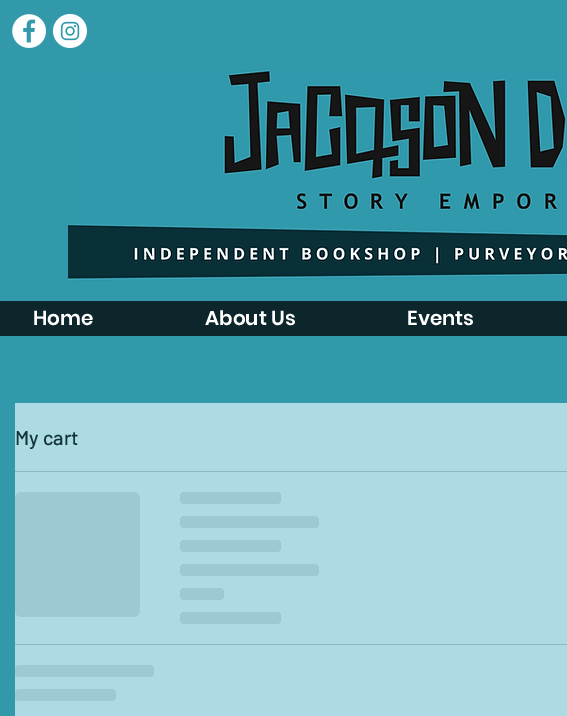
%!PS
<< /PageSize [567 716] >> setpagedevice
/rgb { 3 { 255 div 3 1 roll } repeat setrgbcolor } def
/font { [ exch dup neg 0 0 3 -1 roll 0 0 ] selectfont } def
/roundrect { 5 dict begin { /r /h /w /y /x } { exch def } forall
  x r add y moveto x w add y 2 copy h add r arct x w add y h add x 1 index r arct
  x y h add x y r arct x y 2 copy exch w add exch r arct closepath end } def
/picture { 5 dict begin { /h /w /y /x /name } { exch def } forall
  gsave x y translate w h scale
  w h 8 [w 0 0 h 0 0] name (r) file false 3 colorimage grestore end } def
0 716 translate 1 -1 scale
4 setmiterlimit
50 153 171 rgb
0 0 567 716 rectfill
(img/1.rgb) 12 14 34 34 picture
(img/2.rgb) 53 14 34 34 picture
(img/3.rgb) 68 69 499 212 picture
[
  [0 301 567 35 13 38 43]
  [15 403 552 313 173 219 227]
  [15 471 552 1 142 185 193]
] { aload pop rgb rectfill } forall
gsave 15 492 125 125 8 roundrect clip newpath
<< /ShadingType 2 /ColorSpace /DeviceRGB /Coords [15 555 515 555] /Extend [true true] /Function << /FunctionType 3 /Domain [0 1] /Functions [<< /FunctionType 2 /Domain [0 1] /C0 [0.616 0.792 0.824] /C1 [0.616 0.792 0.824] /N 1 >> << /FunctionType 2 /Domain [0 1] /C0 [0.616 0.792 0.824] /C1 [0.557 0.725 0.757] /N 1 >> << /FunctionType 2 /Domain [0 1] /C0 [0.557 0.725 0.757] /C1 [0.616 0.792 0.824] /N 1 >> << /FunctionType 2 /Domain [0 1] /C0 [0.616 0.792 0.824] /C1 [0.616 0.792 0.824] /N 1 >>] /Bounds [0.25 0.37 0.63] /Encode [0 1 0 1 0 1 0 1] >> >> shfill grestore
gsave 180 492 101 12 6 roundrect clip newpath
<< /ShadingType 2 /ColorSpace /DeviceRGB /Coords [180 498 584 498] /Extend [true true] /Function << /FunctionType 3 /Domain [0 1] /Functions [<< /FunctionType 2 /Domain [0 1] /C0 [0.616 0.792 0.824] /C1 [0.616 0.792 0.824] /N 1 >> << /FunctionType 2 /Domain [0 1] /C0 [0.616 0.792 0.824] /C1 [0.557 0.725 0.757] /N 1 >> << /FunctionType 2 /Domain [0 1] /C0 [0.557 0.725 0.757] /C1 [0.616 0.792 0.824] /N 1 >> << /FunctionType 2 /Domain [0 1] /C0 [0.616 0.792 0.824] /C1 [0.616 0.792 0.824] /N 1 >>] /Bounds [0.25 0.37 0.63] /Encode [0 1 0 1 0 1 0 1] >> >> shfill grestore
gsave 180 516 139 12 6 roundrect clip newpath
<< /ShadingType 2 /ColorSpace /DeviceRGB /Coords [180 522 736 522] /Extend [true true] /Function << /FunctionType 3 /Domain [0 1] /Functions [<< /FunctionType 2 /Domain [0 1] /C0 [0.616 0.792 0.824] /C1 [0.616 0.792 0.824] /N 1 >> << /FunctionType 2 /Domain [0 1] /C0 [0.616 0.792 0.824] /C1 [0.557 0.725 0.757] /N 1 >> << /FunctionType 2 /Domain [0 1] /C0 [0.557 0.725 0.757] /C1 [0.616 0.792 0.824] /N 1 >> << /FunctionType 2 /Domain [0 1] /C0 [0.616 0.792 0.824] /C1 [0.616 0.792 0.824] /N 1 >>] /Bounds [0.25 0.37 0.63] /Encode [0 1 0 1 0 1 0 1] >> >> shfill grestore
gsave 180 540 101 12 6 roundrect clip newpath
<< /ShadingType 2 /ColorSpace /DeviceRGB /Coords [180 546 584 546] /Extend [true true] /Function << /FunctionType 3 /Domain [0 1] /Functions [<< /FunctionType 2 /Domain [0 1] /C0 [0.616 0.792 0.824] /C1 [0.616 0.792 0.824] /N 1 >> << /FunctionType 2 /Domain [0 1] /C0 [0.616 0.792 0.824] /C1 [0.557 0.725 0.757] /N 1 >> << /FunctionType 2 /Domain [0 1] /C0 [0.557 0.725 0.757] /C1 [0.616 0.792 0.824] /N 1 >> << /FunctionType 2 /Domain [0 1] /C0 [0.616 0.792 0.824] /C1 [0.616 0.792 0.824] /N 1 >>] /Bounds [0.25 0.37 0.63] /Encode [0 1 0 1 0 1 0 1] >> >> shfill grestore
gsave 180 564 139 12 6 roundrect clip newpath
<< /ShadingType 2 /ColorSpace /DeviceRGB /Coords [180 570 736 570] /Extend [true true] /Function << /FunctionType 3 /Domain [0 1] /Functions [<< /FunctionType 2 /Domain [0 1] /C0 [0.616 0.792 0.824] /C1 [0.616 0.792 0.824] /N 1 >> << /FunctionType 2 /Domain [0 1] /C0 [0.616 0.792 0.824] /C1 [0.557 0.725 0.757] /N 1 >> << /FunctionType 2 /Domain [0 1] /C0 [0.557 0.725 0.757] /C1 [0.616 0.792 0.824] /N 1 >> << /FunctionType 2 /Domain [0 1] /C0 [0.616 0.792 0.824] /C1 [0.616 0.792 0.824] /N 1 >>] /Bounds [0.25 0.37 0.63] /Encode [0 1 0 1 0 1 0 1] >> >> shfill grestore
gsave 180 588 44 12 6 roundrect clip newpath
<< /ShadingType 2 /ColorSpace /DeviceRGB /Coords [180 594 356 594] /Extend [true true] /Function << /FunctionType 3 /Domain [0 1] /Functions [<< /FunctionType 2 /Domain [0 1] /C0 [0.616 0.792 0.824] /C1 [0.616 0.792 0.824] /N 1 >> << /FunctionType 2 /Domain [0 1] /C0 [0.616 0.792 0.824] /C1 [0.557 0.725 0.757] /N 1 >> << /FunctionType 2 /Domain [0 1] /C0 [0.557 0.725 0.757] /C1 [0.616 0.792 0.824] /N 1 >> << /FunctionType 2 /Domain [0 1] /C0 [0.616 0.792 0.824] /C1 [0.616 0.792 0.824] /N 1 >>] /Bounds [0.25 0.37 0.63] /Encode [0 1 0 1 0 1 0 1] >> >> shfill grestore
gsave 180 612 101 12 6 roundrect clip newpath
<< /ShadingType 2 /ColorSpace /DeviceRGB /Coords [180 618 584 618] /Extend [true true] /Function << /FunctionType 3 /Domain [0 1] /Functions [<< /FunctionType 2 /Domain [0 1] /C0 [0.616 0.792 0.824] /C1 [0.616 0.792 0.824] /N 1 >> << /FunctionType 2 /Domain [0 1] /C0 [0.616 0.792 0.824] /C1 [0.557 0.725 0.757] /N 1 >> << /FunctionType 2 /Domain [0 1] /C0 [0.557 0.725 0.757] /C1 [0.616 0.792 0.824] /N 1 >> << /FunctionType 2 /Domain [0 1] /C0 [0.616 0.792 0.824] /C1 [0.616 0.792 0.824] /N 1 >>] /Bounds [0.25 0.37 0.63] /Encode [0 1 0 1 0 1 0 1] >> >> shfill grestore
15 644 552 1 rectfill
gsave 15 665 139 12 6 roundrect clip newpath
<< /ShadingType 2 /ColorSpace /DeviceRGB /Coords [15 671 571 671] /Extend [true true] /Function << /FunctionType 3 /Domain [0 1] /Functions [<< /FunctionType 2 /Domain [0 1] /C0 [0.616 0.792 0.824] /C1 [0.616 0.792 0.824] /N 1 >> << /FunctionType 2 /Domain [0 1] /C0 [0.616 0.792 0.824] /C1 [0.557 0.725 0.757] /N 1 >> << /FunctionType 2 /Domain [0 1] /C0 [0.557 0.725 0.757] /C1 [0.616 0.792 0.824] /N 1 >> << /FunctionType 2 /Domain [0 1] /C0 [0.616 0.792 0.824] /C1 [0.616 0.792 0.824] /N 1 >>] /Bounds [0.25 0.37 0.63] /Encode [0 1 0 1 0 1 0 1] >> >> shfill grestore
gsave 15 689 101 12 6 roundrect clip newpath
<< /ShadingType 2 /ColorSpace /DeviceRGB /Coords [15 695 419 695] /Extend [true true] /Function << /FunctionType 3 /Domain [0 1] /Functions [<< /FunctionType 2 /Domain [0 1] /C0 [0.616 0.792 0.824] /C1 [0.616 0.792 0.824] /N 1 >> << /FunctionType 2 /Domain [0 1] /C0 [0.616 0.792 0.824] /C1 [0.557 0.725 0.757] /N 1 >> << /FunctionType 2 /Domain [0 1] /C0 [0.557 0.725 0.757] /C1 [0.616 0.792 0.824] /N 1 >> << /FunctionType 2 /Domain [0 1] /C0 [0.616 0.792 0.824] /C1 [0.616 0.792 0.824] /N 1 >>] /Bounds [0.25 0.37 0.63] /Encode [0 1 0 1 0 1 0 1] >> >> shfill grestore
/Poppins-SemiBold 20 font
255 255 255 rgb
[
  [(Home) 33 325]
  [(About Us) 205 325]
  [(Events) 407 325]
] { aload pop moveto show } forall
/Barlow-Medium 20 font
17 51 57 rgb
15 445 moveto (My cart) show
showpage
